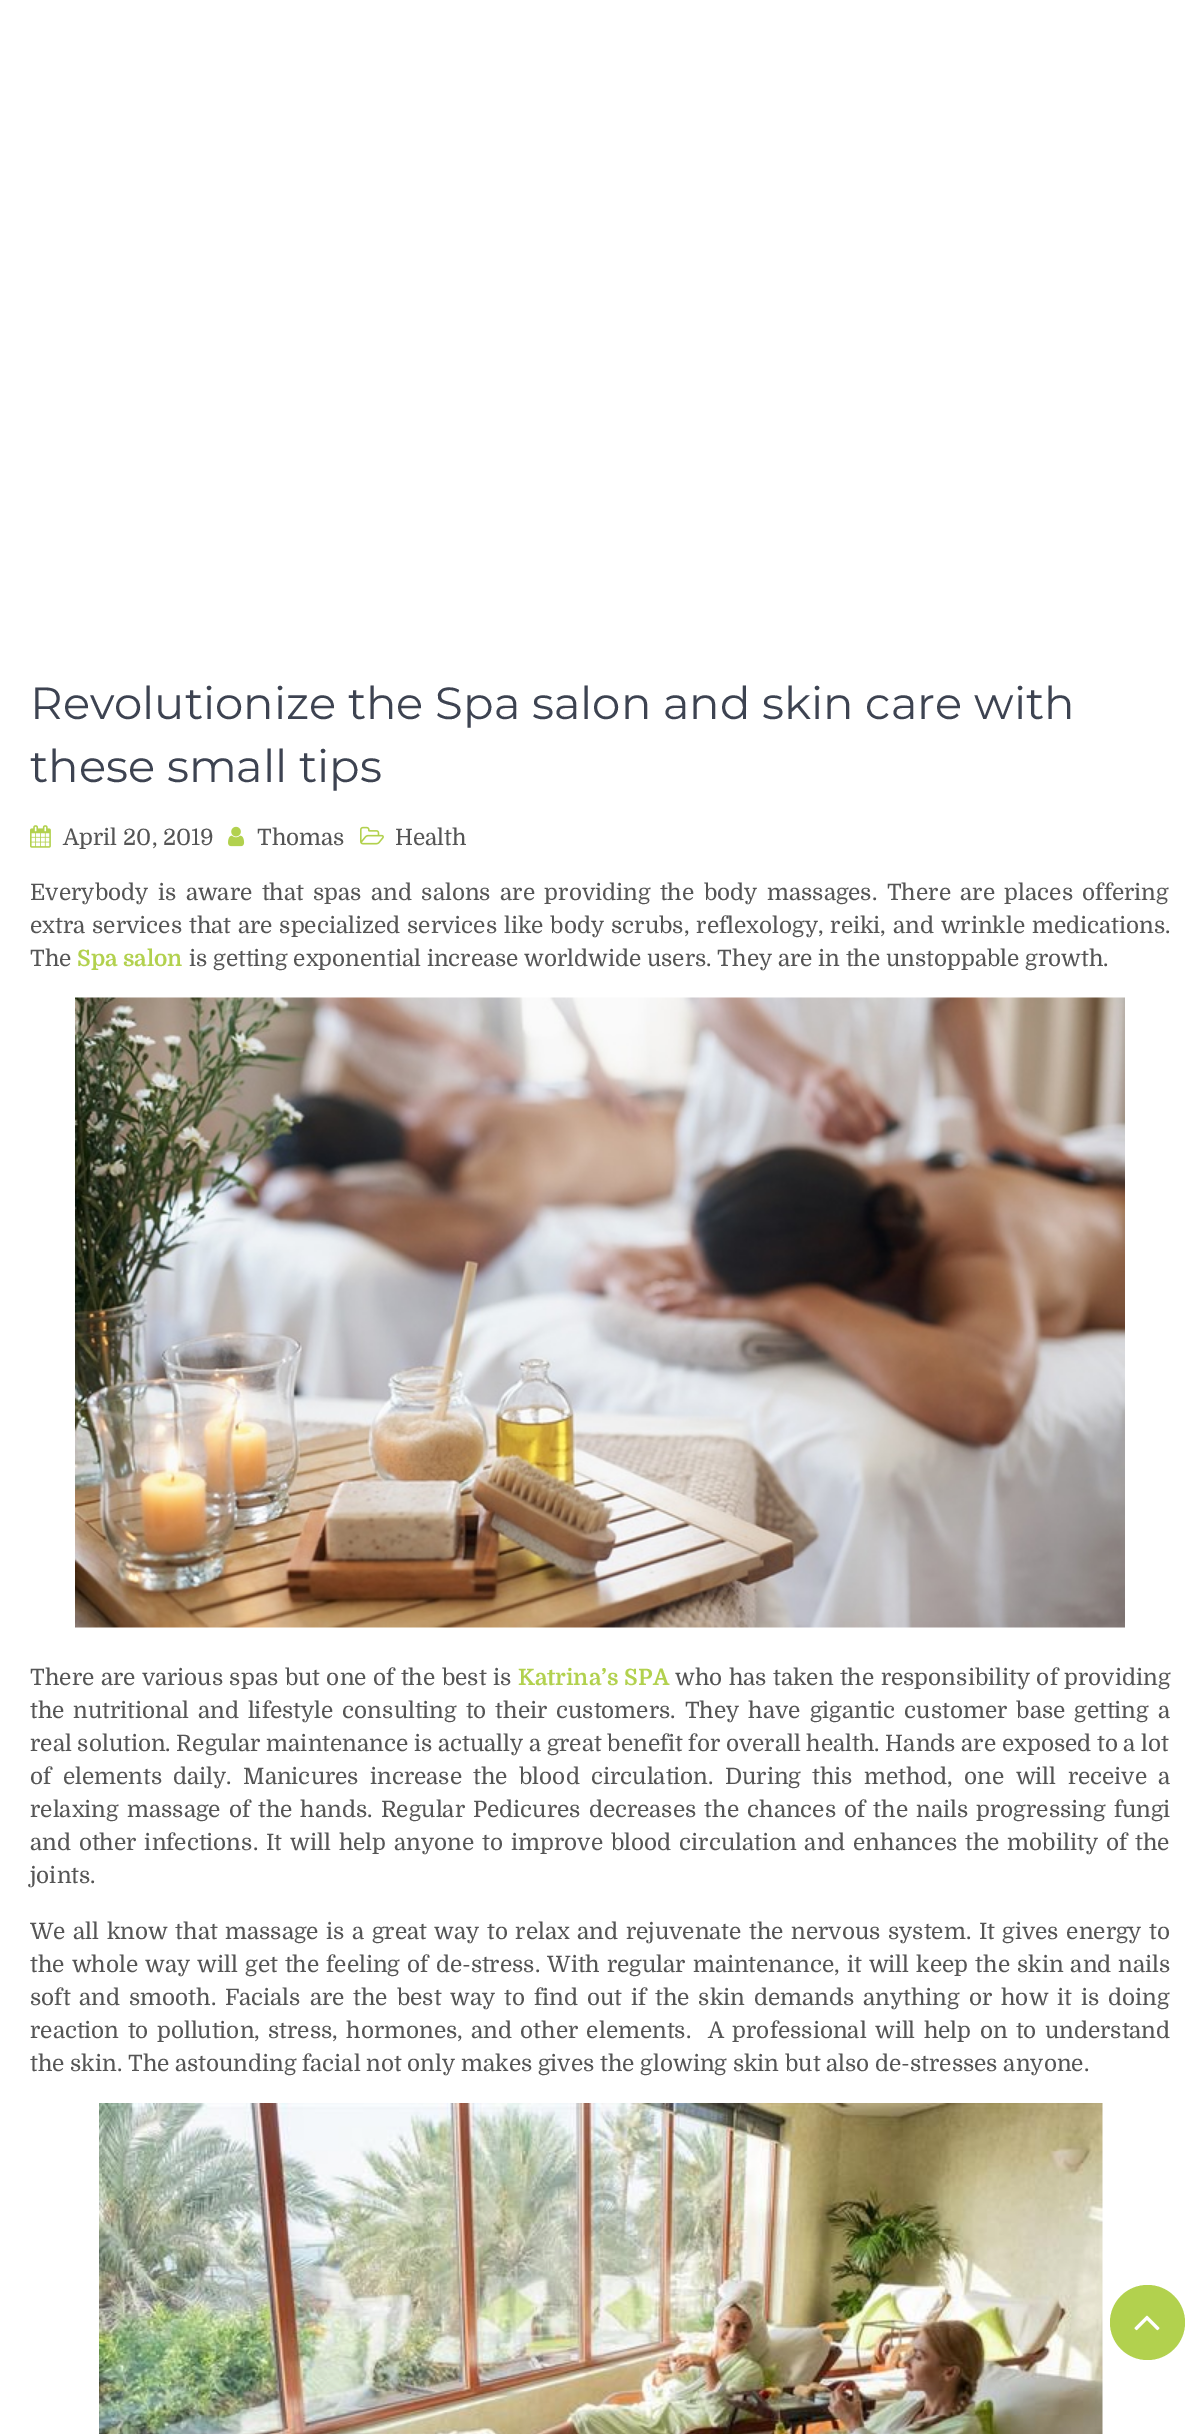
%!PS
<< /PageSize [1199 2434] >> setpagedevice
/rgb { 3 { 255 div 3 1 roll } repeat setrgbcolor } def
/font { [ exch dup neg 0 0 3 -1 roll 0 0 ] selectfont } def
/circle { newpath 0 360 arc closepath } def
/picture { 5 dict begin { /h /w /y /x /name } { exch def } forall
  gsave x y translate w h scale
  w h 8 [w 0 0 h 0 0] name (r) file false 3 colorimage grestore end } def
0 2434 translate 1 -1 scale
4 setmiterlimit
255 255 255 rgb
0 0 1199 2434 rectfill
(img/1.rgb) 30 825 21 23 picture
(img/2.rgb) 228 826 17 21 picture
(img/3.rgb) 360 826 24 19 picture
(img/4.rgb) 75 997 1050 631 picture
(img/5.rgb) 99 2103 1004 331 picture
178 209 78 rgb
1147.5 2322.5 37.5 circle fill
(img/6.rgb) 1134 2315 26 16 picture
/Montserrat-Regular 45 font
61 67 81 rgb
30 719 moveto (Revolutionize the Spa salon and skin care with) show
30 782 moveto (these small tips) show
/Domine-Regular 22.5 font
85 85 85 rgb
[
  [(April 20, 2019) 63 845]
  [(Thomas) 257 845]
  [(Health) 395 845]
] { aload pop moveto show } forall
30 900 moveto 3.75 0 32 (Everybody is aware that spas and salons are providing the body massages. There are places offering) widthshow
30 933 moveto 1.2 0 32 (extra services that are specialized services like body scrubs, reflexology, reiki, and wrinkle medications.) widthshow
30 966 moveto (The) show
/Domine-Bold 22.5 font
178 209 78 rgb
77 966 moveto (Spa salon) show
/Domine-Regular 22.5 font
85 85 85 rgb
189 966 moveto (is getting exponential increase worldwide users. They are in the unstoppable growth.) show
30 1685 moveto 0.75 0 32 (There are various spas but one of the best is) widthshow
/Domine-Bold 22.5 font
178 209 78 rgb
518 1685 moveto 0.75 0 32 (Katrina’s SPA) widthshow
/Domine-Regular 22.5 font
85 85 85 rgb
675 1685 moveto 0.75 0 32 (who has taken the responsibility of providing) widthshow
30 1718 moveto 3.25 0 32 (the nutritional and lifestyle consulting to their customers. They have gigantic customer base getting a) widthshow
30 1751 moveto (real solution. Regular maintenance is actually a great benefit for overall health. Hands are exposed to a lot) show
30 1784 moveto 5.6 0 32 (of elements daily.) widthshow
243 1784 moveto 5.6 0 32 (Manicures increase the blood circulation. During this method, one will receive a) widthshow
30 1817 moveto 2.4 0 32 (relaxing massage of the hands. Regular Pedicures decreases the chances of the nails progressing fungi) widthshow
30 1850 moveto 2.25 0 32 (and other infections. It will help anyone to improve blood circulation and enhances the mobility of the) widthshow
30 1883 moveto (joints.) show
30 1939 moveto 1.9 0 32 (We all know that massage is a great way to relax and rejuvenate the nervous system. It gives energy to) widthshow
30 1972 moveto 1.4 0 32 (the whole way will get the feeling of de-stress. With regular maintenance, it will keep the skin and nails) widthshow
30 2005 moveto 3.25 0 32 (soft and smooth. Facials are the best way to find out if the skin demands anything or how it is doing) widthshow
30 2038 moveto 2.6 0 32 (reaction to pollution, stress, hormones, and other elements.  A professional will help on to understand) widthshow
30 2071 moveto (the skin. The astounding facial not only makes gives the glowing skin but also de-stresses anyone.) show
showpage
